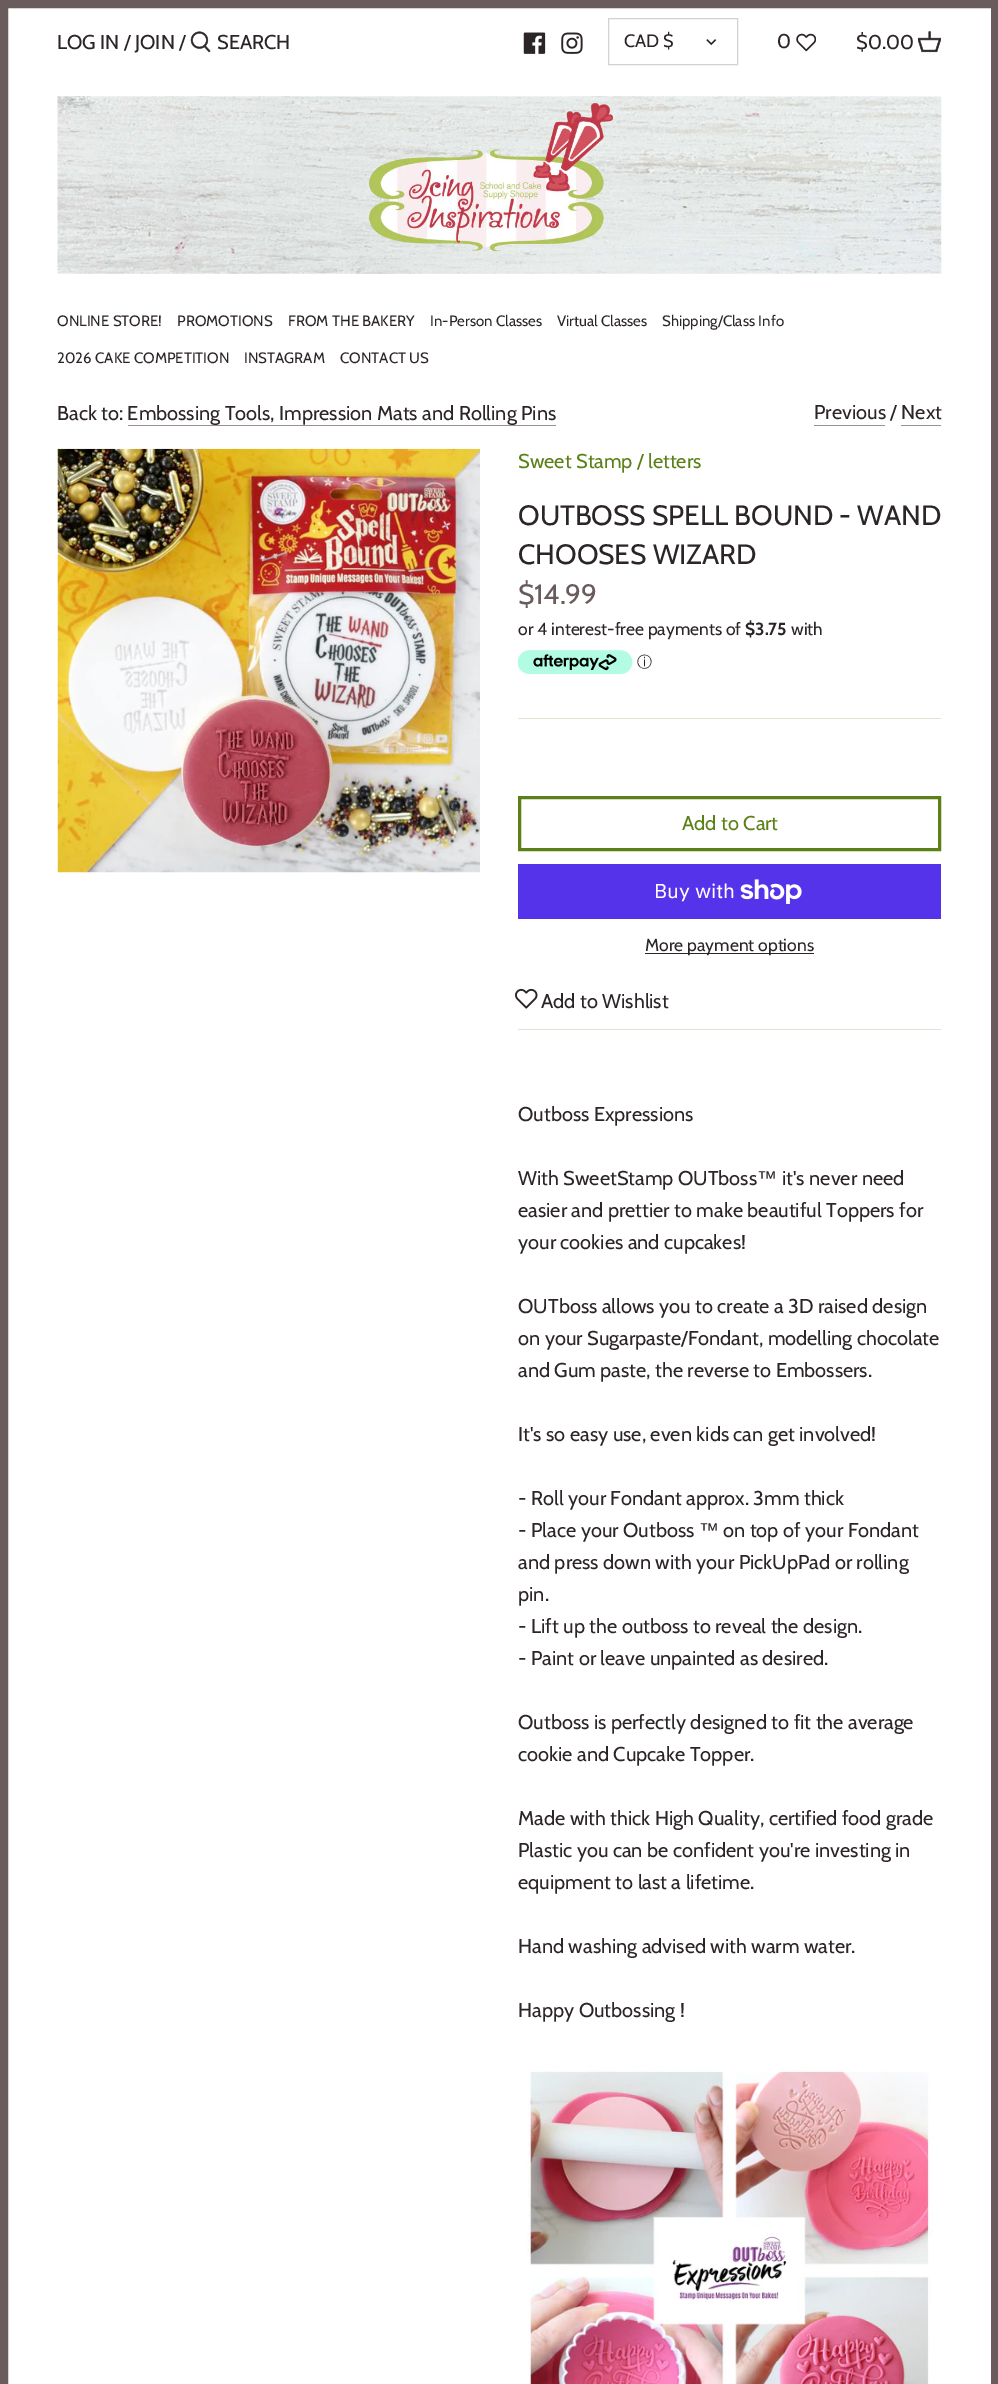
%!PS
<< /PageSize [998 2384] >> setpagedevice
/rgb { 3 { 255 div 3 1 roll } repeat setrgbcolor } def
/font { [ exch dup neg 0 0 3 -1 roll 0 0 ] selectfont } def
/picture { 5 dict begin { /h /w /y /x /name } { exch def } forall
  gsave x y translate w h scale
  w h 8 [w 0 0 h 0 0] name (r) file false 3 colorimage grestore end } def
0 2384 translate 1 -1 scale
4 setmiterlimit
255 255 255 rgb
0 0 998 2384 rectfill
106 91 92 rgb
8 setlinewidth
4 4 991 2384 rectstroke
(img/1.rgb) 190 31 21 22 picture
(img/2.rgb) 523 32 23 22 picture
(img/3.rgb) 561 32 22 22 picture
211 209 210 rgb
1 setlinewidth
608.5 18.5 129 46 rectstroke
(img/4.rgb) 706 39 11 7 picture
(img/5.rgb) 796 33 20 19 picture
(img/6.rgb) 918 31 23 22 picture
(img/7.rgb) 57 96 885 178 picture
[
  [128 425 428 1 150 146 148]
  [814 425 71 1 150 146 148]
  [901 425 40 1 150 146 148]
] { aload pop rgb rectfill } forall
(img/8.rgb) 57 448 423 425 picture
229 226 212 rgb
518 718 423 1 rectfill
(img/9.rgb) 518 650 115 25 picture
518 1029 423 1 rectfill
92 128 24 rgb
3 setlinewidth
519.5 797.5 420 52 rectstroke
84 51 235 rgb
518 864 423 55 rectfill
(img/10.rgb) 740 879 62 25 picture
44 37 40 rgb
645 953 169 1 rectfill
(img/11.rgb) 515 988 23 21 picture
(img/12.rgb) 526 2066 408 318 picture
/Cabin-Regular 20 font
57 49 moveto (LOG IN / JOIN /) show
217 49 moveto (SEARCH) show
/Cabin-Regular 18 font
624 47 moveto (CAD $) show
/Cabin-Regular 20 font
777 48 moveto (0) show
856 49 moveto ($0.00) show
/Cabin-Regular 15 font
[
  [(ONLINE STORE!) 57 326]
  [(PROMOTIONS) 177 326]
  [(FROM THE BAKERY) 288 326]
  [(In-Person Classes) 430 326]
  [(Virtual Classes) 557 326]
  [(Shipping/Class Info) 662 326]
  [(2026 CAKE COMPETITION) 57 363]
  [(INSTAGRAM) 244 363]
  [(CONTACT US) 340 363]
] { aload pop moveto show } forall
/Cabin-Regular 20 font
57 420 moveto (Back to: Embossing Tools, Impression Mats and Rolling Pins) show
814 419 moveto (Previous / Next) show
92 128 24 rgb
518 468 moveto (Sweet Stamp / letters) show
/Cabin-Regular 28 font
44 37 40 rgb
518 525 moveto (OUTBOSS SPELL BOUND - WAND) show
518 564 moveto (CHOOSES WIZARD) show
106 91 92 rgb
518 604 moveto ($14.99) show
/Cabin-Regular 17.5 font
44 37 40 rgb
518 635 moveto (or 4 interest-free payments of) show
/Cabin-Bold 17.5 font
745 635 moveto ($3.75) show
/Cabin-Regular 17.5 font
791 635 moveto (with) show
/WenQuanYiZenHei-Medium 15 font
637 667 moveto (ⓘ) show
/Cabin-Regular 20 font
92 128 24 rgb
682 830 moveto (Add to Cart) show
/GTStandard-Regular 20 font
255 255 255 rgb
654 898 moveto (Buy with) show
/Cabin-Regular 17.5 font
44 37 40 rgb
645 951 moveto (More payment options) show
/Cabin-Regular 20 font
[
  [(Add to Wishlist) 541 1008]
  [(Outboss Expressions) 518 1121]
  [(With SweetStamp OUTboss) 518 1185]
] { aload pop moveto show } forall
/LiberationSans-Regular 20 font
757 1185 moveto (™) show
/Cabin-Regular 20 font
[
  [(it's never need) 782 1185]
  [(easier and prettier to make beautiful Toppers for) 518 1217]
  [(your cookies and cupcakes!) 518 1249]
  [(OUTboss allows you to create a 3D raised design) 518 1313]
  [(on your Sugarpaste/Fondant, modelling chocolate) 518 1345]
  [(and Gum paste, the reverse to Embossers.) 518 1377]
  [(It's so easy use, even kids can get involved!) 518 1441]
  [(- Roll your Fondant approx. 3mm thick) 518 1505]
  [(- Place your Outboss) 518 1537]
] { aload pop moveto show } forall
/LiberationSans-Regular 20 font
699 1537 moveto (™) show
/Cabin-Regular 20 font
[
  [(on top of your Fondant) 723 1537]
  [(and press down with your PickUpPad or rolling) 518 1569]
  [(pin.) 518 1601]
  [(- Lift up the outboss to reveal the design.) 518 1633]
  [(- Paint or leave unpainted as desired.) 518 1665]
  [(Outboss is perfectly designed to fit the average) 518 1729]
  [(cookie and Cupcake Topper.) 518 1761]
  [(Made with thick High Quality, certified food grade) 518 1825]
  [(Plastic you can be confident you're investing in) 518 1857]
  [(equipment to last a lifetime.) 518 1889]
  [(Hand washing advised with warm water.) 518 1953]
  [(Happy Outbossing !) 518 2017]
] { aload pop moveto show } forall
showpage
